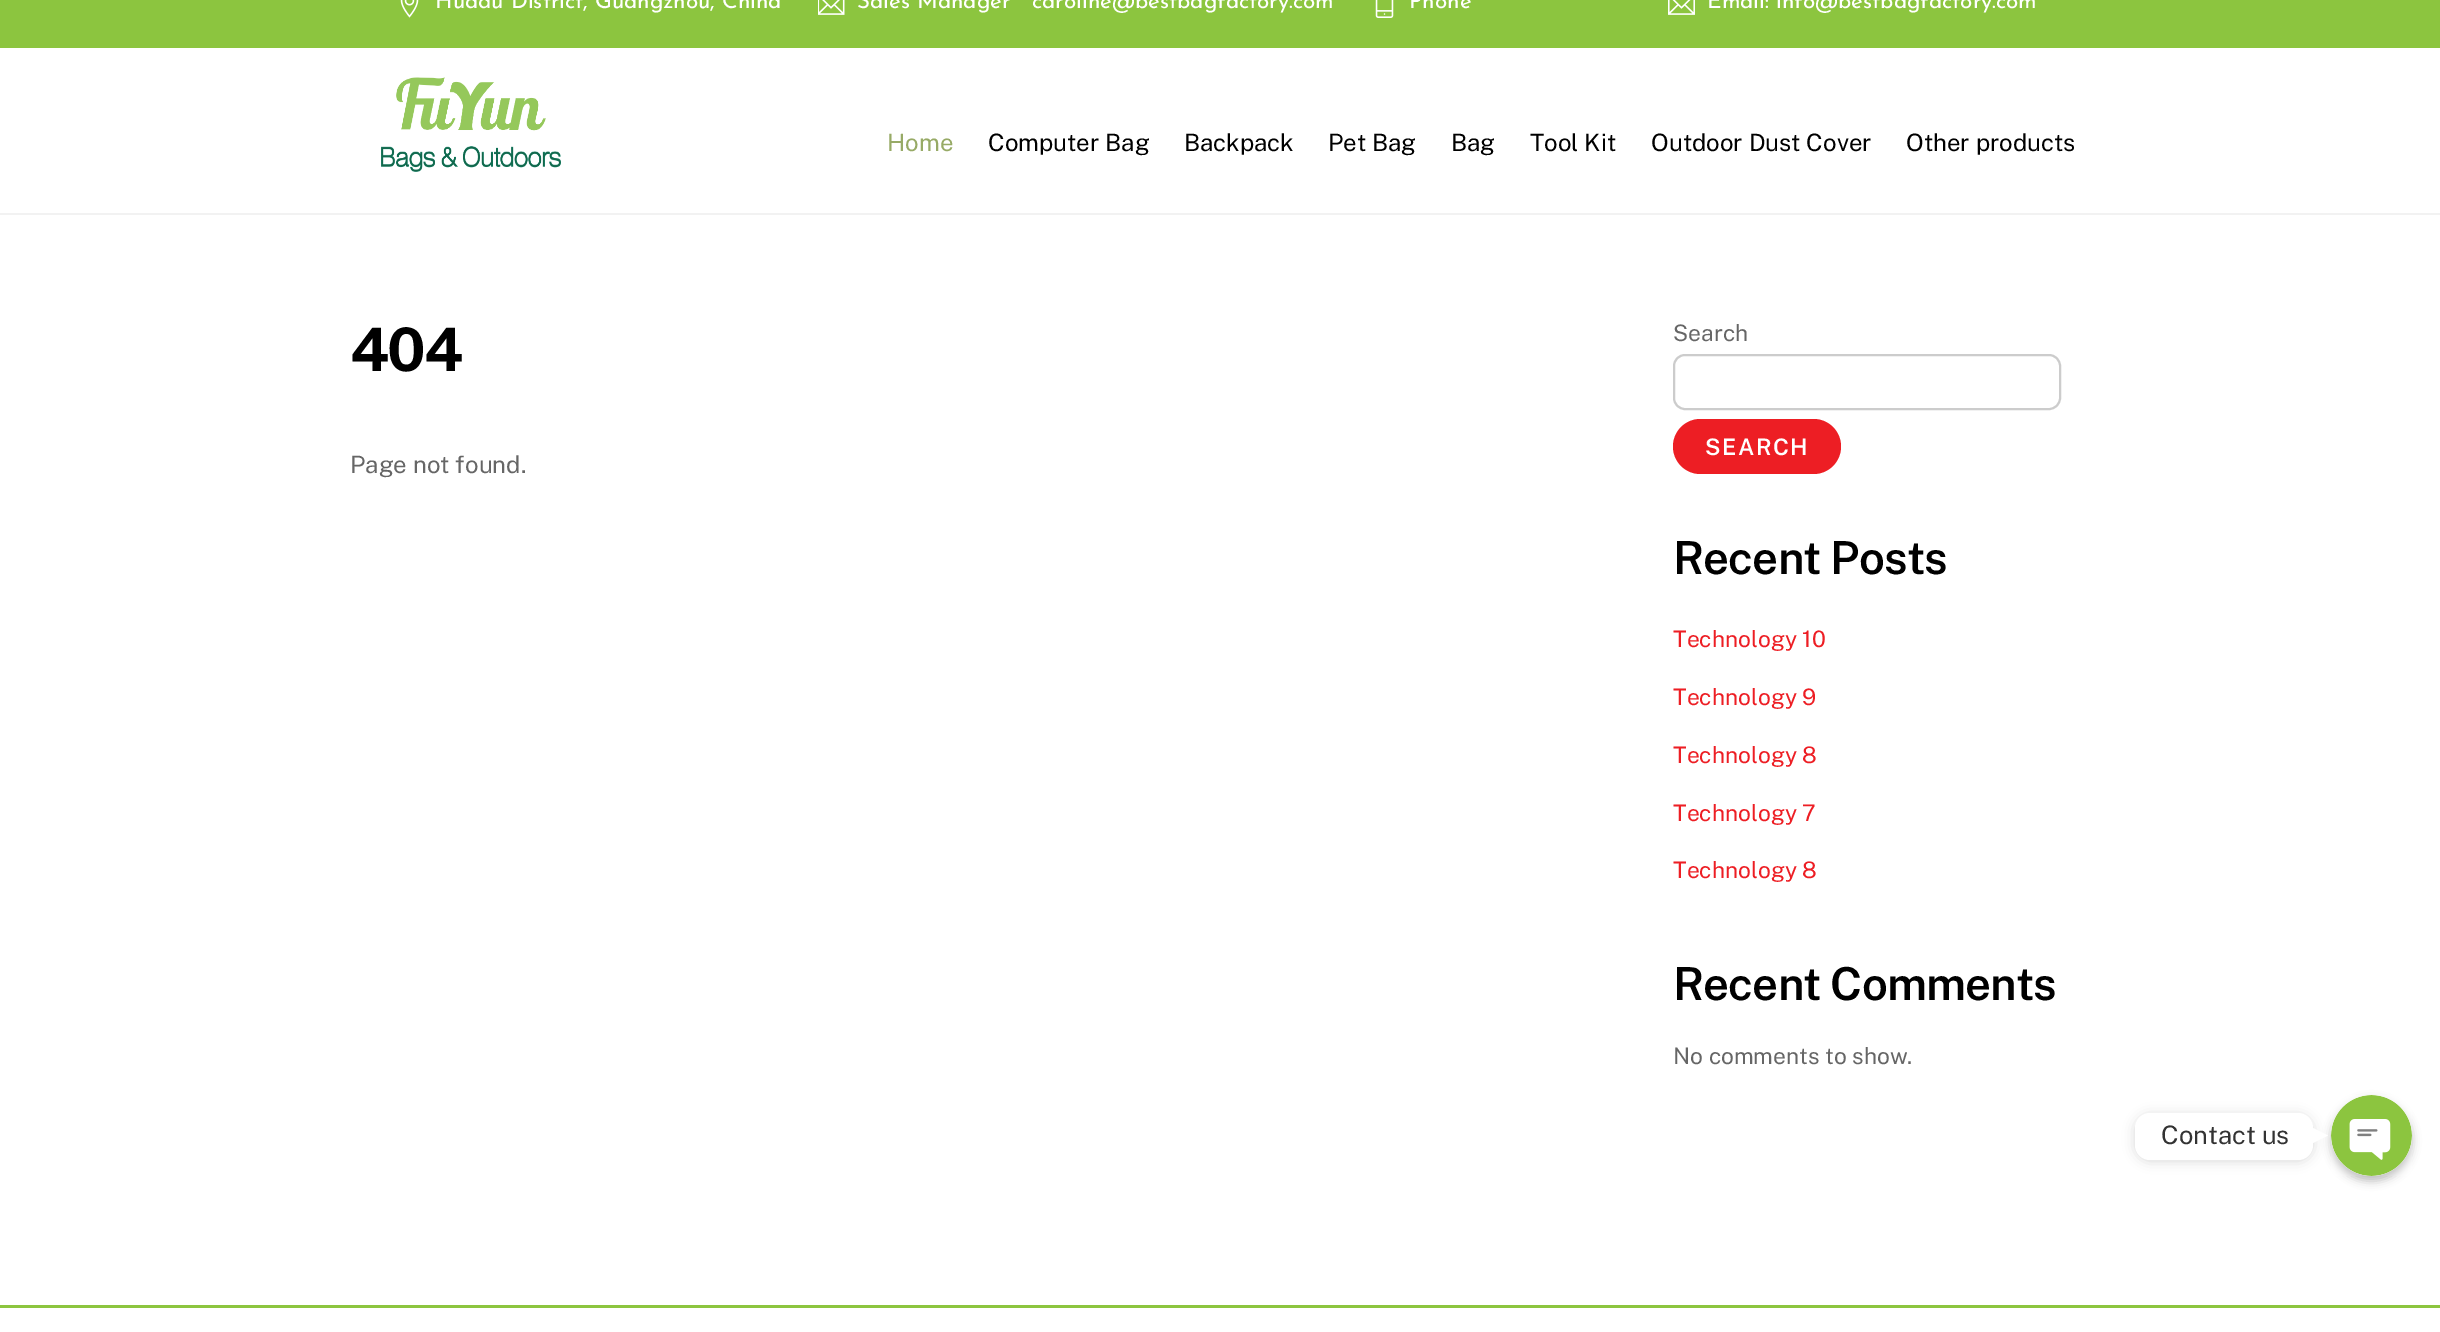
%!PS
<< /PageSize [2440 1332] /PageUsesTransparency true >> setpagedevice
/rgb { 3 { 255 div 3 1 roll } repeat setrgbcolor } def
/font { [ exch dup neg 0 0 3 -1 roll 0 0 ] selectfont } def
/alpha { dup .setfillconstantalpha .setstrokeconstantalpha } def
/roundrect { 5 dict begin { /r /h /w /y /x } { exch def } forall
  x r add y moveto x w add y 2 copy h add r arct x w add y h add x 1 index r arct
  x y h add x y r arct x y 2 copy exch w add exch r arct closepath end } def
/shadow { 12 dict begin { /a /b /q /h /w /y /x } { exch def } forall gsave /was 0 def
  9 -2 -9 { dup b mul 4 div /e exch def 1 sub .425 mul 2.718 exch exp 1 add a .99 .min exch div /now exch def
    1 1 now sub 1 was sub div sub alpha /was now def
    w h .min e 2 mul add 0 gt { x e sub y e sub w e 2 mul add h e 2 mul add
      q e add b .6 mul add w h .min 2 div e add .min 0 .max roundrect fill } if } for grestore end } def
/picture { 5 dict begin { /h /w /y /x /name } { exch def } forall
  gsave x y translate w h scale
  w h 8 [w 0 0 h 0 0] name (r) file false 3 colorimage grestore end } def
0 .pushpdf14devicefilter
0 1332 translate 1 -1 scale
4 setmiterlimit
255 255 255 rgb
0 0 2440 1332 rectfill
242 242 242 rgb
0 213 2440 2 rectfill
140 197 63 rgb
0 0 2440 48 rectfill
(img/1.rgb) 400 0 19 18 picture
(img/2.rgb) 818 0 27 15 picture
(img/3.rgb) 1375 0 19 18 picture
(img/4.rgb) 1668 0 27 15 picture
(img/5.rgb) 381 77 180 95 picture
204 204 204 rgb
2 setlinewidth
1674 355 386 54 11 roundrect stroke
237 30 36 rgb
1673 419 168 55 27.5 roundrect fill
0 0 0 rgb
2331 1100 81 81 40.5 4.5 0.25 shadow
(img/6.rgb) 2331 1095 81 81 picture
2135 1115 178 46 15 6 0.15 shadow
255 255 255 rgb
2135 1113 178 47 15 roundrect fill
2313 1143 moveto 2313 1128 lineto 2328 1135.5 lineto closepath fill
140 197 63 rgb
0 1305 2440 3 rectfill
/JosefinSans-Regular 22.5 font
255 255 255 rgb
[
  [(Huadu District, Guangzhou, China) 435 8]
  [(Sales Manager) 857 8]
  [(caroline@bestbagfactory.com) 1032 8]
  [(Phone) 1409 8]
  [(Email: info@bestbagfactory.com) 1707 8]
] { aload pop moveto show } forall
/PublicSans-Regular 24 font
151 170 102 rgb
887 151 moveto (Home) show
0 0 0 rgb
[
  [(Computer Bag) 988 151]
  [(Backpack) 1184 151]
  [(Pet Bag) 1328 151]
  [(Bag) 1451 151]
  [(Tool Kit) 1530 151]
  [(Outdoor Dust Cover) 1651 151]
  [(Other products) 1906 151]
] { aload pop moveto show } forall
/PublicSans-Bold 60 font
350 371 moveto -2 0 (404) ashow
/PublicSans-Regular 24 font
102 102 102 rgb
350 473 moveto (Page not found.) show
/PublicSans-Regular 22.75 font
1673 341 moveto (Search) show
/PublicSans-SemiBold 22.75 font
255 255 255 rgb
1705 455 moveto 1.5 0 (SEARCH) ashow
/PublicSans-SemiBold 45.5 font
0 0 0 rgb
1673 574 moveto -0.9 0 (Recent Posts) ashow
/PublicSans-Regular 22.75 font
237 30 36 rgb
[
  [(Technology 10) 1673 647]
  [(Technology 9) 1673 705]
  [(Technology 8) 1673 763]
  [(Technology 7) 1673 821]
  [(Technology 8) 1673 878]
] { aload pop moveto show } forall
/PublicSans-SemiBold 45.5 font
0 0 0 rgb
1673 1000 moveto -0.9 0 (Recent Comments) ashow
/PublicSans-Regular 22.75 font
102 102 102 rgb
1673 1064 moveto (No comments to show.) show
/PublicSans-Regular 25.5 font
51 51 51 rgb
2161 1144 moveto (Contact us) show
.poppdf14devicefilter showpage
